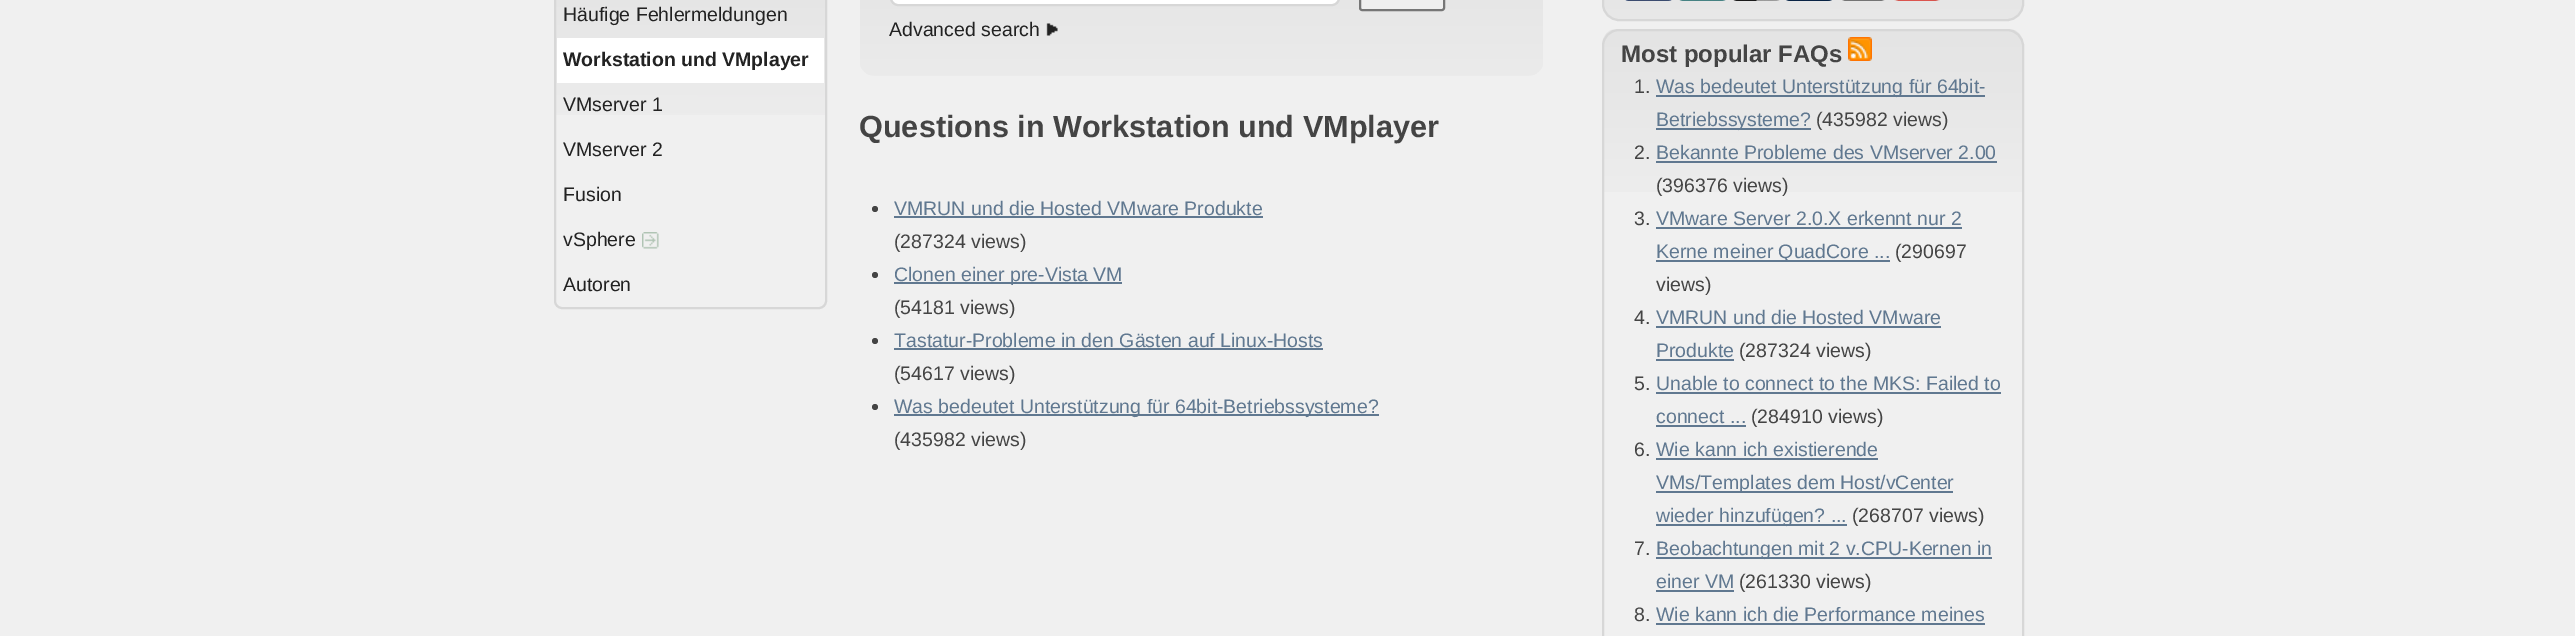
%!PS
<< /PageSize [2575 636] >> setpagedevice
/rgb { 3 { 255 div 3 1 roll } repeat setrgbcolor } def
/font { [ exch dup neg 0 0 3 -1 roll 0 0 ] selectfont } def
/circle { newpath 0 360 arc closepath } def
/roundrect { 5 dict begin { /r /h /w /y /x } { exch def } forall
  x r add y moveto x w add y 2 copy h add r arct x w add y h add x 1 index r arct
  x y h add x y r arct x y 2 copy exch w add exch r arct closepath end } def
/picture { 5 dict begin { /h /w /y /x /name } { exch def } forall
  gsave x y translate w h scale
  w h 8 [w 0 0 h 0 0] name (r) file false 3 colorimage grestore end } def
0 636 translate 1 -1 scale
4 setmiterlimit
240 240 240 rgb
0 0 2575 636 rectfill
(img/1.rgb) 556 0 269 115 picture
215 215 215 rgb
2 setlinewidth
555 -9 271 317 7 roundrect stroke
255 255 255 rgb
557 38 267 45 rectfill
(img/2.rgb) 642 232 17 17 picture
(img/3.rgb) 860 0 683 76 picture
891 -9 448 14 7 roundrect gsave fill grestore
215 215 215 rgb
stroke
239 239 239 rgb
1360 -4 84 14 2 roundrect gsave fill grestore
118 118 118 rgb
stroke
(img/4.rgb) 1046 23 12 13 picture
68 68 68 rgb
875 209 3 circle fill
96 120 144 rgb
894 216 369 2 rectfill
68 68 68 rgb
875 275 3 circle fill
96 120 144 rgb
894 282 228 2 rectfill
68 68 68 rgb
875 341 3 circle fill
96 120 144 rgb
894 348 429 2 rectfill
68 68 68 rgb
875 407 3 circle fill
96 120 144 rgb
894 414 485 2 rectfill
(img/5.rgb) 1602 0 421 20 picture
215 215 215 rgb
1603 -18 420 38 16 roundrect stroke
(img/6.rgb) 1625 0 47 1 picture
(img/7.rgb) 1679 0 47 1 picture
(img/8.rgb) 1733 0 47 1 picture
(img/9.rgb) 1786 0 46 1 picture
(img/10.rgb) 1842 0 43 1 picture
(img/11.rgb) 1894 0 46 1 picture
(img/12.rgb) 1602 29 421 163 picture
1603 30 420 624 16 roundrect stroke
(img/13.rgb) 1848 37 24 24 picture
[
  [1656 95 329 2 96 120 144]
  [1656 128 155 2 96 120 144]
  [1656 161 341 2 96 120 144]
  [1656 227 306 2 96 120 144]
  [1656 260 234 2 96 120 144]
  [1656 326 285 2 96 120 144]
  [1656 359 78 2 96 120 144]
  [1656 392 345 2 96 120 144]
  [1656 425 90 2 96 120 144]
  [1656 458 222 2 96 120 144]
  [1656 491 297 2 96 120 144]
  [1656 524 191 2 96 120 144]
  [1656 557 336 2 96 120 144]
  [1656 590 78 2 96 120 144]
  [1656 623 329 2 96 120 144]
] { aload pop rgb rectfill } forall
/LiberationSans-Regular 19.5 font
34 34 34 rgb
563 21 moveto (Häufige Fehlermeldungen) show
/LiberationSans-Bold 19.5 font
563 66 moveto (Workstation und VMplayer) show
/LiberationSans-Regular 19.5 font
[
  [(VMserver 1) 563 111]
  [(VMserver 2) 563 156]
  [(Fusion) 563 201]
  [(vSphere) 563 246]
  [(Autoren) 563 291]
  [(Advanced search) 889 36]
] { aload pop moveto show } forall
/LiberationSans-Bold 30.6 font
68 68 68 rgb
859 137 moveto (Questions in Workstation und VMplayer) show
/LiberationSans-Regular 19.5 font
96 120 144 rgb
894 215 moveto (VMRUN und die Hosted VMware Produkte) show
68 68 68 rgb
894 248 moveto (\(287324 views\)) show
96 120 144 rgb
894 281 moveto (Clonen einer pre-Vista VM) show
68 68 68 rgb
894 314 moveto (\(54181 views\)) show
96 120 144 rgb
894 347 moveto (Tastatur-Probleme in den Gästen auf Linux-Hosts) show
68 68 68 rgb
894 380 moveto (\(54617 views\)) show
96 120 144 rgb
894 413 moveto (Was bedeutet Unterstützung für 64bit-Betriebssysteme?) show
68 68 68 rgb
894 446 moveto (\(435982 views\)) show
/LiberationSans-Bold 24 font
1621 62 moveto (Most popular FAQs) show
/LiberationSans-Regular 19.5 font
1634 93 moveto (1.) show
96 120 144 rgb
1656 93 moveto (Was bedeutet Unterstützung für 64bit-) show
1656 126 moveto (Betriebssysteme?) show
68 68 68 rgb
1816 126 moveto (\(435982 views\)) show
1634 159 moveto (2.) show
96 120 144 rgb
1656 159 moveto (Bekannte Probleme des VMserver 2.00) show
68 68 68 rgb
1656 192 moveto (\(396376 views\)) show
1634 225 moveto (3.) show
96 120 144 rgb
1656 225 moveto (VMware Server 2.0.X erkennt nur 2) show
1656 258 moveto (Kerne meiner QuadCore ...) show
68 68 68 rgb
[
  [(\(290697) 1895 258]
  [(views\)) 1656 291]
  [(4.) 1634 324]
] { aload pop moveto show } forall
96 120 144 rgb
1656 324 moveto (VMRUN und die Hosted VMware) show
1656 357 moveto (Produkte) show
68 68 68 rgb
1739 357 moveto (\(287324 views\)) show
1634 390 moveto (5.) show
96 120 144 rgb
1656 390 moveto (Unable to connect to the MKS: Failed to) show
1656 423 moveto (connect ...) show
68 68 68 rgb
1751 423 moveto (\(284910 views\)) show
1634 456 moveto (6.) show
96 120 144 rgb
[
  [(Wie kann ich existierende) 1656 456]
  [(VMs/Templates dem Host/vCenter) 1656 489]
  [(wieder hinzufügen? ...) 1656 522]
] { aload pop moveto show } forall
68 68 68 rgb
1852 522 moveto (\(268707 views\)) show
1634 555 moveto (7.) show
96 120 144 rgb
1656 555 moveto (Beobachtungen mit 2 v.CPU-Kernen in) show
1656 588 moveto (einer VM) show
68 68 68 rgb
1739 588 moveto (\(261330 views\)) show
1634 621 moveto (8.) show
96 120 144 rgb
1656 621 moveto (Wie kann ich die Performance meines) show
showpage
